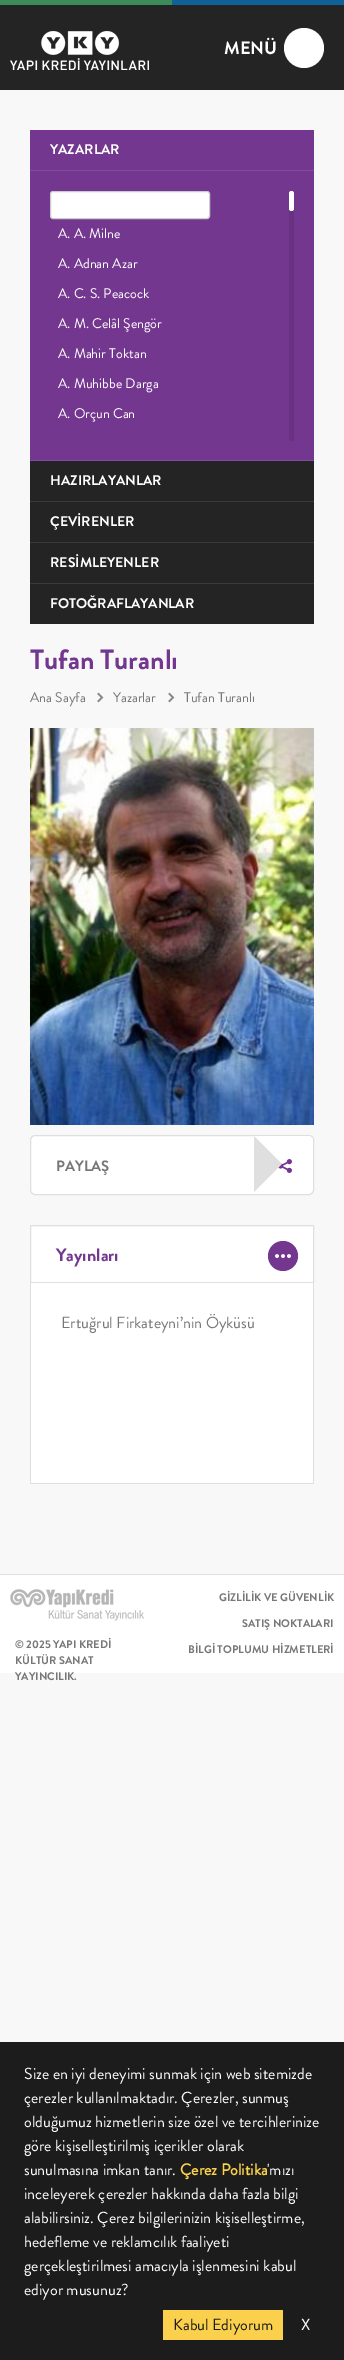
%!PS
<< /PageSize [344 2360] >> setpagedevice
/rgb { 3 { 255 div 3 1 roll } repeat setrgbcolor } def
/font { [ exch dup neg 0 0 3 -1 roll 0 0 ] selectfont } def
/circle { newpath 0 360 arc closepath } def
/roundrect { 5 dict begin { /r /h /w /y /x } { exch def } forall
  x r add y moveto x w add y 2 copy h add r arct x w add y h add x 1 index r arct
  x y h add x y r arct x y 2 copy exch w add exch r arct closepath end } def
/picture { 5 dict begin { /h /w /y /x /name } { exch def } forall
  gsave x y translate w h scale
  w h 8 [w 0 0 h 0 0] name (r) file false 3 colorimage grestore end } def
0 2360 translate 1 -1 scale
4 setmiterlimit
248 248 248 rgb
0 0 344 2360 rectfill
36 36 36 rgb
0 5 344 85 rectfill
(img/1.rgb) 0 0 344 5 picture
(img/2.rgb) 10 31 139 39 picture
255 255 255 rgb
304 48 20 circle fill
[
  [30 461 284 163 36 36 36]
  [30 130 284 40 116 55 144]
  [30 170 284 1 130 75 156]
  [30 171 284 289 116 55 144]
  [30 460 284 1 130 75 156]
] { aload pop rgb rectfill } forall
255 255 255 rgb
50.5 191.5 159 27 2.5 roundrect gsave fill grestore
204 204 204 rgb
stroke
104 49 129 rgb
289 191 5 250 2.5 roundrect fill
255 255 255 rgb
289 191 5 20 2.5 roundrect fill
[
  [30 501 284 1 58 58 58]
  [30 542 284 1 58 58 58]
  [30 583 284 1 58 58 58]
] { aload pop rgb rectfill } forall
(img/3.rgb) 97 692 7 11 picture
(img/3.rgb) 168 692 7 11 picture
(img/4.rgb) 30 728 284 397 picture
255 255 255 rgb
30.5 1135.5 283 59 4.5 roundrect gsave fill grestore
223 223 223 rgb
stroke
255 255 255 rgb
254 1136 moveto 308 1136 lineto 311 1136 313 1138 313 1141 curveto 313 1187 lineto 313 1190 311 1192 308 1192 curveto 254 1192 lineto closepath fill
(img/5.rgb) 278 1159 14 14 picture
223 223 223 rgb
254 1136 moveto 282 1164 lineto 254 1192 lineto closepath fill
255 255 255 rgb
30.5 1225.5 moveto 313.5 1225.5 lineto 313.5 1282.5 lineto 30.5 1282.5 lineto closepath gsave fill grestore
223 223 223 rgb
stroke
116 55 144 rgb
283 1256 15 circle fill
(img/6.rgb) 275 1254 16 4 picture
[
  [31 1283 282 200 255 255 255]
  [313 1283 1 201 223 223 223]
  [30 1483 284 1 223 223 223]
  [30 1283 1 201 223 223 223]
  [0 1575 344 98 255 255 255]
  [0 1574 344 1 223 223 223]
] { aload pop rgb rectfill } forall
(img/7.rgb) 10 1589 134 32 picture
28 28 28 rgb
0 2042 344 318 rectfill
250 208 76 rgb
163 2310 120 30 rectfill
/BrandonGrotesque-Bold 18 font
255 255 255 rgb
224 54 moveto (MENÜ) show
/BrandonGrotesque-Bold 14 font
50 154 moveto (YAZARLAR) show
/BrandonGrotesque-Regular 14 font
[
  [(A. A. Milne) 58 238]
  [(A. Adnan Azar) 58 268]
  [(A. C. S. Peacock) 58 298]
  [(A. M. Celâl Şengör) 58 328]
  [(A. Mahir Toktan) 58 358]
  [(A. Muhibbe Darga) 58 388]
  [(A. Orçun Can) 58 418]
] { aload pop moveto show } forall
/BrandonGrotesque-Bold 14 font
[
  [(HAZIRLAYANLAR) 50 485]
  [(ÇEVİRENLER) 50 526]
  [(RESİMLEYENLER) 50 567]
  [(FOTOĞRAFLAYANLAR) 50 608]
] { aload pop moveto show } forall
/BrandonGrotesque-Bold 28 font
116 55 144 rgb
30 669 moveto (Tufan Turanlı) show
/BrandonGrotesque-Regular 14 font
119 119 119 rgb
[
  [(Ana Sayfa) 30 702]
  [(Yazarlar) 113 702]
  [(Tufan Turanlı) 184 702]
] { aload pop moveto show } forall
/BrandonGrotesque-Bold 15 font
56 1171 moveto (PAYLAŞ) show
/BrandonGrotesque-Bold 18 font
116 55 144 rgb
56 1261 moveto (Yayınları) show
/BrandonGrotesque-Regular 16 font
119 119 119 rgb
61 1328 moveto (Ertuğrul Firkateyni’nin Öyküsü) show
/BrandonGrotesque-Bold 11 font
[
  [(GİZLİLİK VE GÜVENLİK) 219 1601]
  [(SATIŞ NOKTALARI) 242 1627]
  [(BİLGİ TOPLUMU HİZMETLERİ) 188 1653]
  [(© 2025 YAPI KREDİ) 15 1648]
  [(KÜLTÜR SANAT) 15 1664]
  [(YAYINCILIK.) 15 1680]
] { aload pop moveto show } forall
/BrandonGrotesque-Regular 16 font
255 255 255 rgb
[
  [(Size en iyi deneyimi sunmak için web sitemizde) 24 2079]
  [(çerezler kullanılmaktadır. Çerezler, sunmuş) 24 2103]
  [(olduğumuz hizmetlerin size özel ve tercihlerinize) 24 2127]
  [(göre kişiselleştirilmiş içerikler olarak) 24 2151]
  [(sunulmasına imkan tanır.) 24 2175]
] { aload pop moveto show } forall
/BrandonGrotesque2-Bold 16 font
250 208 76 rgb
180 2175 moveto (Çerez Politika) show
/BrandonGrotesque-Regular 16 font
255 255 255 rgb
[
  [('mızı) 267 2175]
  [(inceleyerek çerezler hakkında daha fazla bilgi) 24 2199]
  [(alabilirsiniz. Çerez bilgilerinizin kişiselleştirme,) 24 2223]
  [(hedefleme ve reklamcılık faaliyeti) 24 2247]
  [(gerçekleştirilmesi amacıyla işlenmesini kabul) 24 2271]
  [(ediyor musunuz?) 24 2295]
] { aload pop moveto show } forall
28 28 28 rgb
173 2330 moveto (Kabul Ediyorum) show
255 255 255 rgb
301 2330 moveto (X) show
showpage
